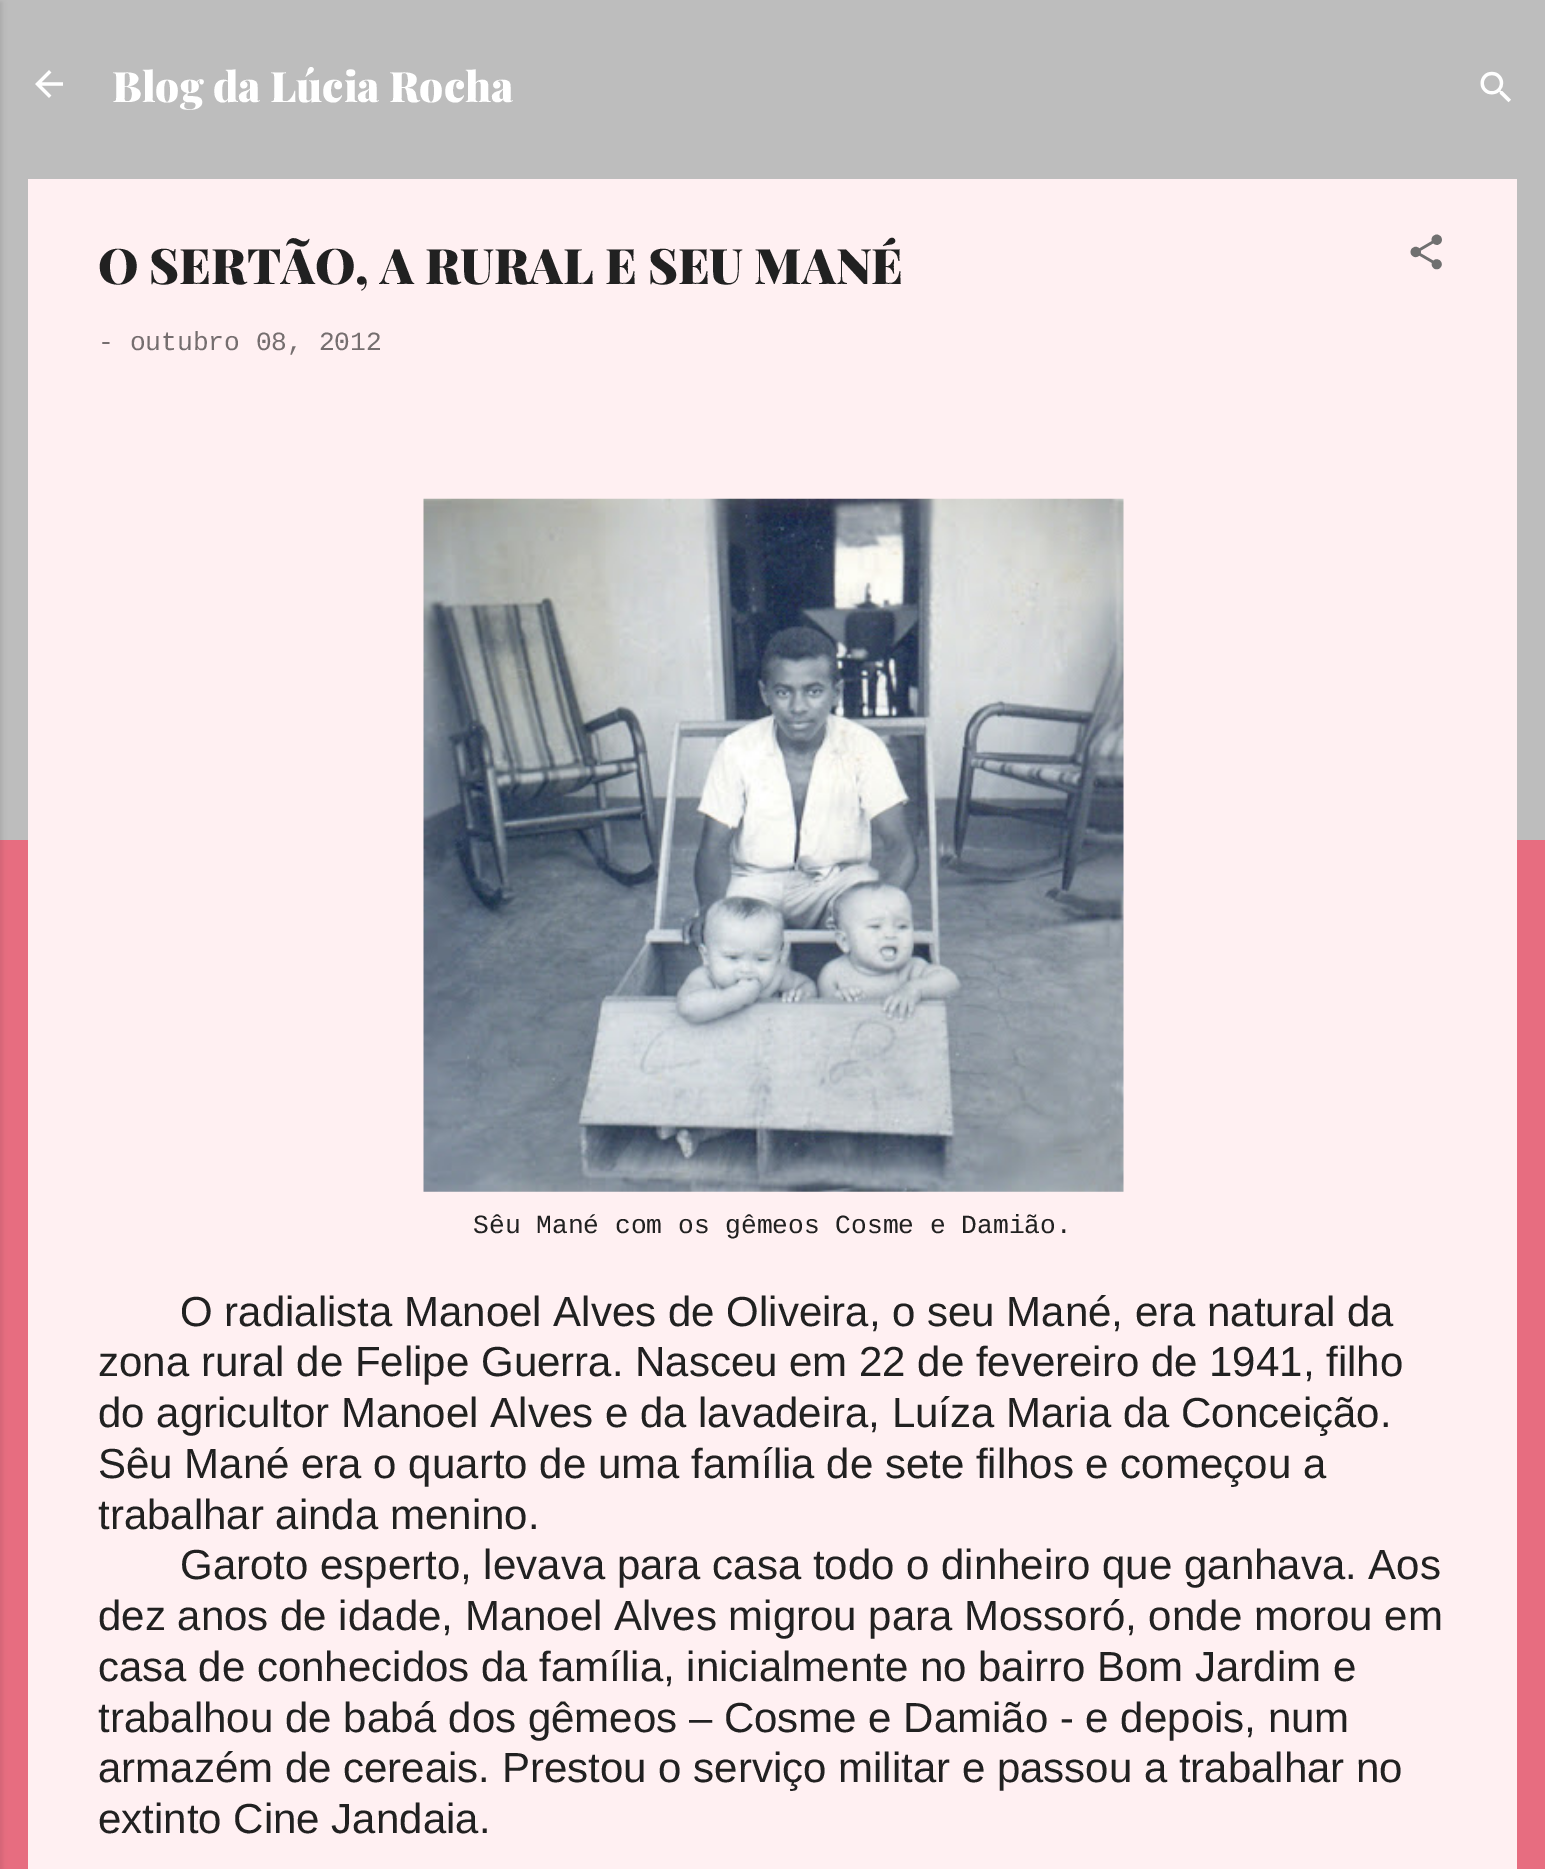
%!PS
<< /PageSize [1545 1869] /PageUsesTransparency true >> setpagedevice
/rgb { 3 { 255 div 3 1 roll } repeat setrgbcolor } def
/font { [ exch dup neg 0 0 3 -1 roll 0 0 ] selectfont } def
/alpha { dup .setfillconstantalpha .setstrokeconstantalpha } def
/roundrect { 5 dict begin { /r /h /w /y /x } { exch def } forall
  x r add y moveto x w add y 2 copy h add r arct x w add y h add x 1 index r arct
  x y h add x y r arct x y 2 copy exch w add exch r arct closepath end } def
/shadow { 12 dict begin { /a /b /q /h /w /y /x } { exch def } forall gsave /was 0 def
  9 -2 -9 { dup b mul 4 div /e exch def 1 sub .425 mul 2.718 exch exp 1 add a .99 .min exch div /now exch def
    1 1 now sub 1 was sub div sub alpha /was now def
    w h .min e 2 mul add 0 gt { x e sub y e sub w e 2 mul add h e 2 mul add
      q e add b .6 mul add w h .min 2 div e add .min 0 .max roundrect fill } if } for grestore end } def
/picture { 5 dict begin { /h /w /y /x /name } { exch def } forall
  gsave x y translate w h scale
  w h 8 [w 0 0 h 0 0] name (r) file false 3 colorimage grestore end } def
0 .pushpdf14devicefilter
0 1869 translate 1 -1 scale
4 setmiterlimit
231 109 128 rgb
0 0 1545 1869 rectfill
189 189 189 rgb
0 0 1545 840 rectfill
0 0 0 rgb
-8 2 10 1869 0 2.5 0.1 shadow
(img/1.rgb) 35 70 28 28 picture
(img/2.rgb) 1480 71 31 32 picture
255 240 242 rgb
28 179 1489 1690 rectfill
(img/3.rgb) 1410 234 32 36 picture
(img/4.rgb) 423 498 701 694 picture
/PlayfairDisplay-Black 42 font
255 255 255 rgb
112 102 moveto (Blog da Lúcia Rocha) show
/PlayfairDisplay-Black 49 font
33 33 33 rgb
98 284 moveto (O SERTÃO, A RURAL E SEU MANÉ) show
/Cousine-Regular 26.25 font
117 110 111 rgb
98 350 moveto (- outubro 08, 2012) show
33 33 33 rgb
473 1233 moveto (Sêu Mané com os gêmeos Cosme e Damião.) show
/LiberationSans-Regular 42 font
[
  [(O radialista Manoel Alves de Oliveira, o seu Mané, era natural da) 180 1326]
  [(zona rural de Felipe Guerra. Nasceu em 22 de fevereiro de 1941, filho) 98 1376]
  [(do agricultor Manoel Alves e da lavadeira, Luíza Maria da Conceição.) 98 1427]
  [(Sêu Mané era o quarto de uma família de sete filhos e começou a) 98 1478]
  [(trabalhar ainda menino.) 98 1529]
  [(Garoto esperto, levava para casa todo o dinheiro que ganhava. Aos) 180 1579]
  [(dez anos de idade, Manoel Alves migrou para Mossoró, onde morou em) 98 1630]
  [(casa de conhecidos da família, inicialmente no bairro Bom Jardim e) 98 1681]
  [(trabalhou de babá dos gêmeos – Cosme e Damião - e depois, num) 98 1732]
  [(armazém de cereais. Prestou o serviço militar e passou a trabalhar no) 98 1782]
  [(extinto Cine Jandaia.) 98 1833]
] { aload pop moveto show } forall
.poppdf14devicefilter showpage
